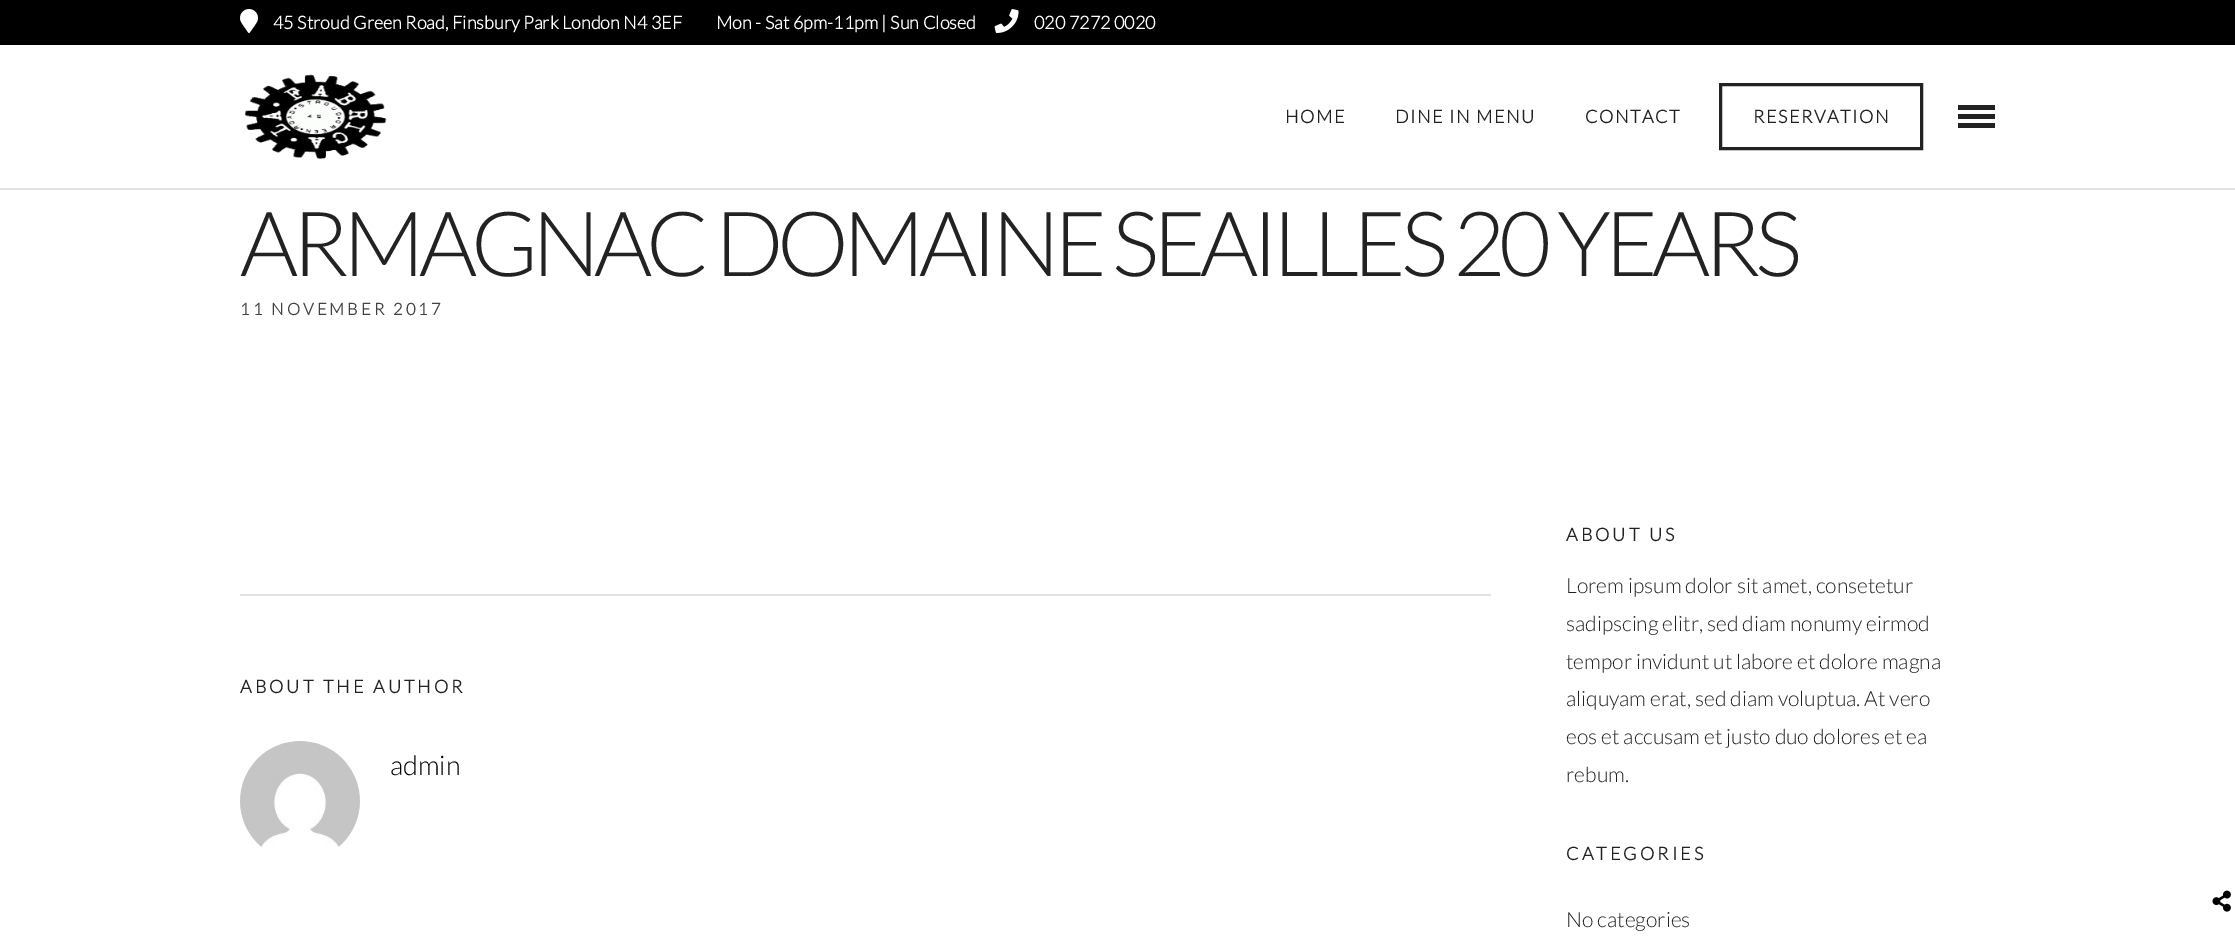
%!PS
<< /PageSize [2235 949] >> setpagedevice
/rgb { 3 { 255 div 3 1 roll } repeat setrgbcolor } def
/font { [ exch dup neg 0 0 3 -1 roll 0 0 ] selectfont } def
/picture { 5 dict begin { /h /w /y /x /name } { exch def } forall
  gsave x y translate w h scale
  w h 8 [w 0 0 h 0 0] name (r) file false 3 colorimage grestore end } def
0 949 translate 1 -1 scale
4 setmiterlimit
255 255 255 rgb
0 0 2235 949 rectfill
0 0 0 rgb
0 0 2235 45 rectfill
(img/1.rgb) 240 9 18 24 picture
(img/2.rgb) 994 9 25 24 picture
225 225 225 rgb
0 188 2235 2 rectfill
(img/3.rgb) 244 74 143 85 picture
34 34 34 rgb
3 setlinewidth
1720.5 84.5 201 64 rectstroke
[
  [1958 105 37 5 34 34 34]
  [1958 114 37 5 34 34 34]
  [1958 123 37 5 34 34 34]
  [240 594 1251 2 225 225 225]
] { aload pop rgb rectfill } forall
(img/4.rgb) 240 741 120 106 picture
(img/5.rgb) 2212 890 19 22 picture
/Lato-Bold 18 font
255 255 255 rgb
[
  [(45 Stroud Green Road, Finsbury Park London N4 3EF) 273 29]
  [(Mon - Sat 6pm-11pm | Sun Closed) 716 29]
  [(020 7272 0020) 1034 29]
] { aload pop moveto show } forall
34 34 34 rgb
1285 123 moveto 1.5 0 (HOME) ashow
1395 123 moveto 1.5 0 (DINE IN MENU) ashow
1585 123 moveto 1.5 0 (CONTACT) ashow
1753 123 moveto 1.5 0 (RESERVATION) ashow
/Lato-Light 90 font
240 276 moveto -6 0 (ARMAGNAC DOMAINE SEAILLES 20 YEARS) ashow
/Lato-Bold 16.5 font
66 66 66 rgb
240 315 moveto 3 0 (11 NOVEMBER 2017) ashow
/Lato-Bold 18 font
34 34 34 rgb
240 693 moveto 3 0 (ABOUT THE AUTHOR) ashow
/Lato-Light 27 font
0 0 0 rgb
390 775 moveto (admin) show
/Lato-Bold 18 font
34 34 34 rgb
1566 541 moveto 3 0 (ABOUT US) ashow
/Lato-Light 21 font
[
  [(Lorem ipsum dolor sit amet, consetetur) 1566 593]
  [(sadipscing elitr, sed diam nonumy eirmod) 1566 631]
  [(tempor invidunt ut labore et dolore magna) 1566 669]
  [(aliquyam erat, sed diam voluptua. At vero) 1566 706]
  [(eos et accusam et justo duo dolores et ea) 1566 744]
  [(rebum.) 1566 782]
] { aload pop moveto show } forall
/Lato-Bold 18 font
1566 860 moveto 3 0 (CATEGORIES) ashow
/Lato-Light 21 font
1566 927 moveto (No categories) show
showpage
